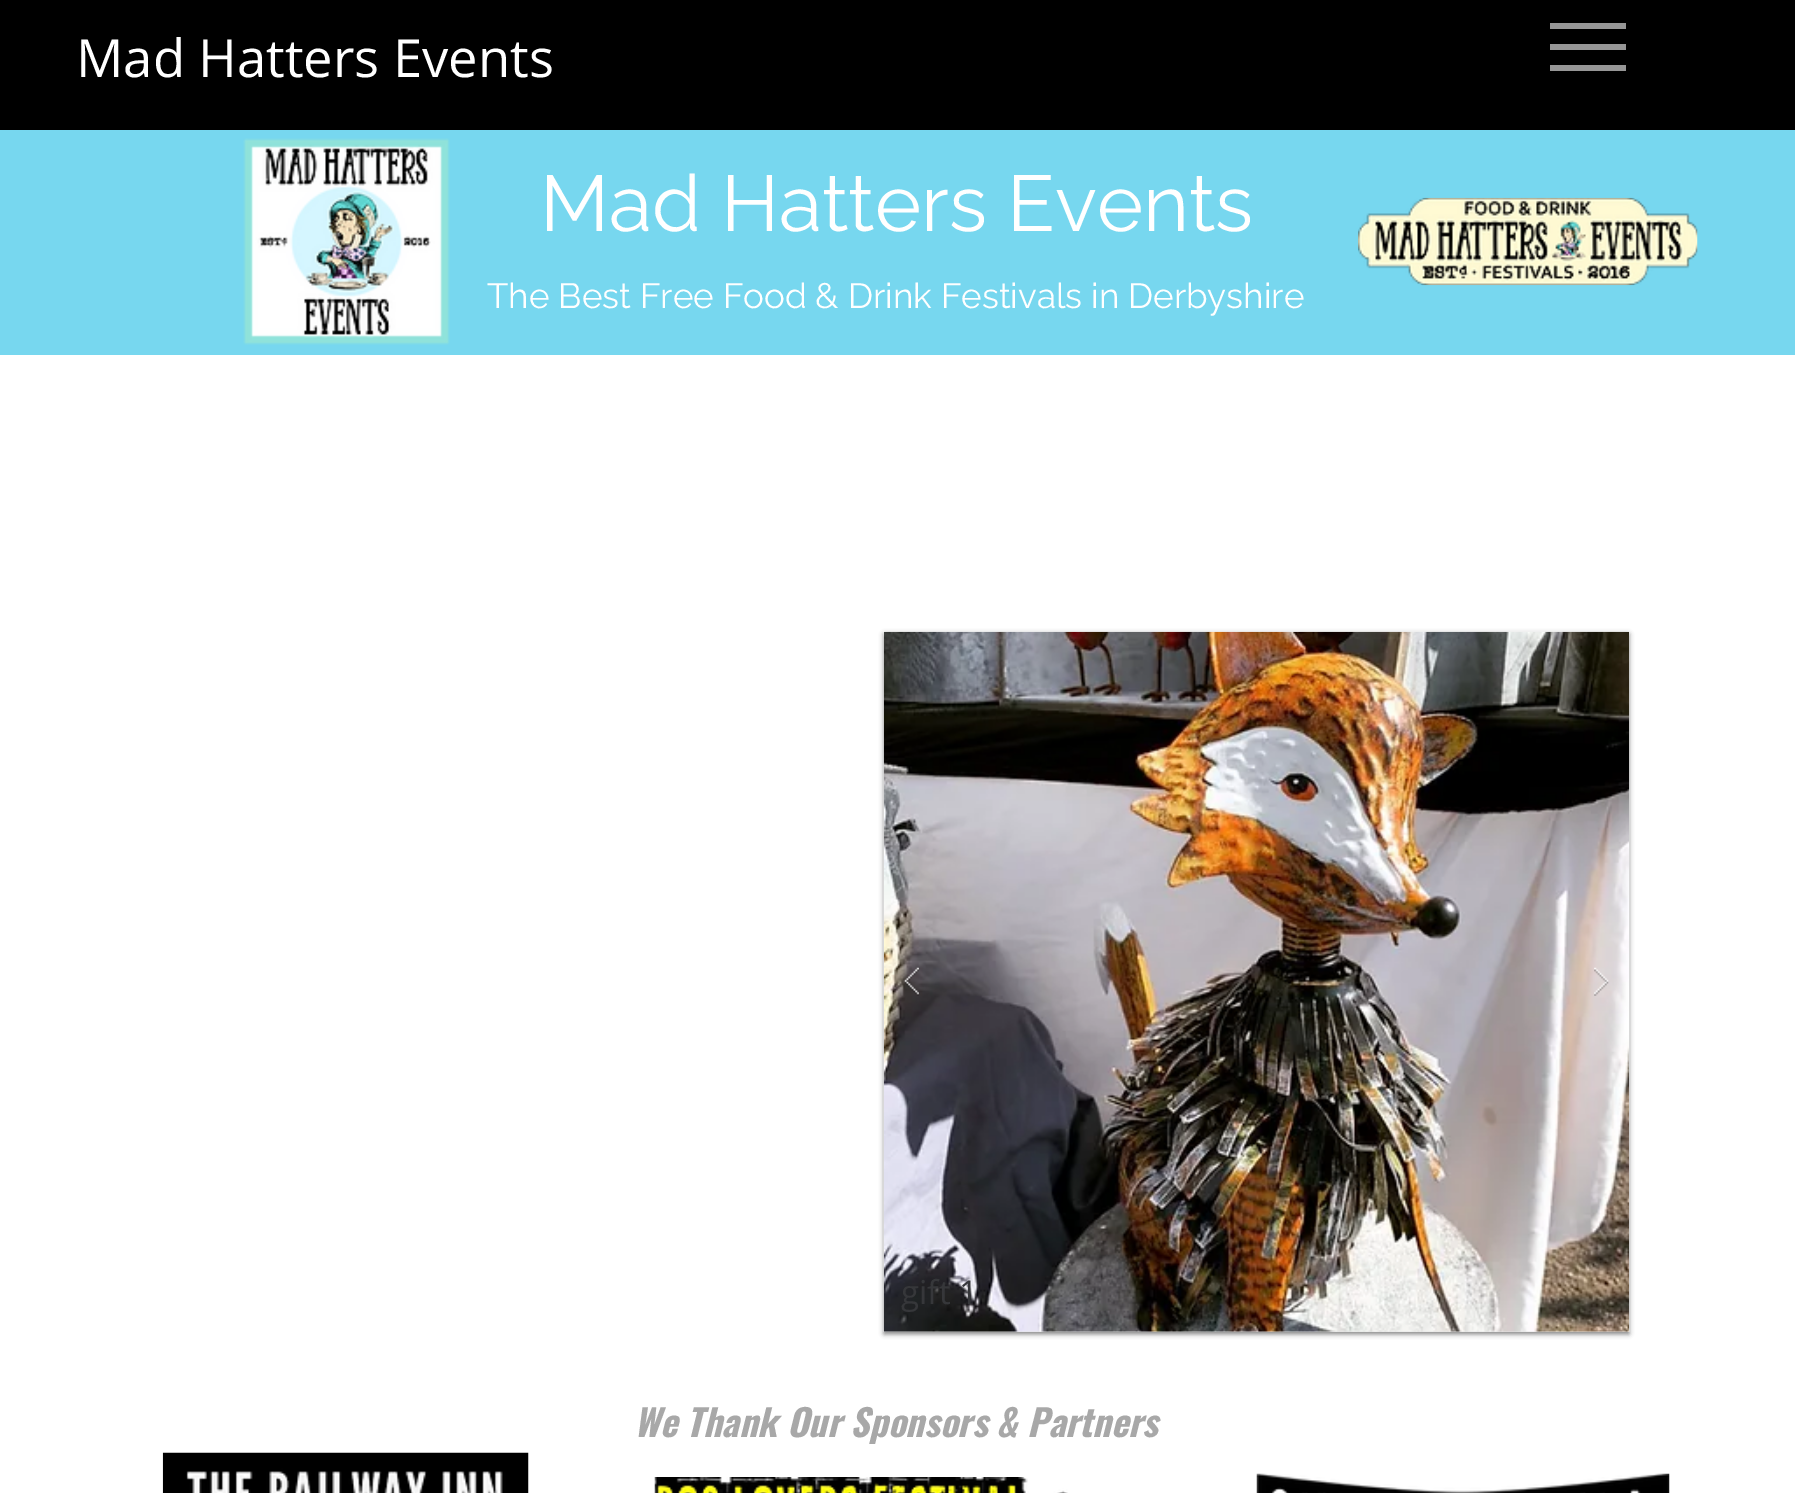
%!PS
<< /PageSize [1795 1493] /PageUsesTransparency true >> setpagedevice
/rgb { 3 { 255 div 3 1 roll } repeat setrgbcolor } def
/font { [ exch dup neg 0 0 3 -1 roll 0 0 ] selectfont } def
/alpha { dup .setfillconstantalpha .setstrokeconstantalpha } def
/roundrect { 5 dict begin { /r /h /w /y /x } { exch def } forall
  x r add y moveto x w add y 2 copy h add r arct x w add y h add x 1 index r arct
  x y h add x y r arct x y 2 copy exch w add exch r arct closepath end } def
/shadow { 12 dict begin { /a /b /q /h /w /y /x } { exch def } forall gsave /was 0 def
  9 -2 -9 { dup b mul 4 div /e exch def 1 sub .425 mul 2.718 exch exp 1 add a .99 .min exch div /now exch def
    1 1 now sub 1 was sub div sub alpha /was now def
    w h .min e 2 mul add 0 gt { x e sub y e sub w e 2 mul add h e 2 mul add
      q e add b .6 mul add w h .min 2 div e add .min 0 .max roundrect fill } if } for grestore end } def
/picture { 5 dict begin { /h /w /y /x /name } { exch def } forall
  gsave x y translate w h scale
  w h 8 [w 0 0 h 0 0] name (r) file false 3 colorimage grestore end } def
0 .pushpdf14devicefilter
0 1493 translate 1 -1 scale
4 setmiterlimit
255 255 255 rgb
0 0 1795 1493 rectfill
[
  [0 0 1795 130 0 0 0]
  [1550 65 76 6 150 150 150]
  [1550 23 76 6 150 150 150]
  [1550 44 76 6 150 150 150]
  [0 130 1795 225 119 215 239]
] { aload pop rgb rectfill } forall
(img/1.rgb) 243 138 207 207 picture
(img/2.rgb) 1358 197 340 89 picture
0 0 0 rgb
884 634 745 700 0 2.5 0.5 shadow
(img/5.rgb) 883 631 747 701 picture
(img/3.rgb) 904 967 15 29 picture
(img/4.rgb) 1594 967 15 29 picture
(img/6.rgb) 162 1452 367 41 picture
(img/7.rgb) 654 1477 414 16 picture
(img/8.rgb) 1256 1473 414 20 picture
/OpenSans-Regular 52.5 font
255 255 255 rgb
76 77 moveto (Mad Hatters Events) show
/Raleway-Regular 78.75 font
540 231 moveto (Mad Hatters Events) show
/Raleway-Regular 35 font
487 308 moveto (The Best Free Food & Drink Festivals in Derbyshire) show
/OpenSans-Regular 33 font
54 55 58 rgb
901 1304 moveto (gift 1) show
/Oswald-BoldItalic 36.75 font
168 168 168 rgb
634 1437 moveto (We Thank Our Sponsors & Partners) show
.poppdf14devicefilter showpage
